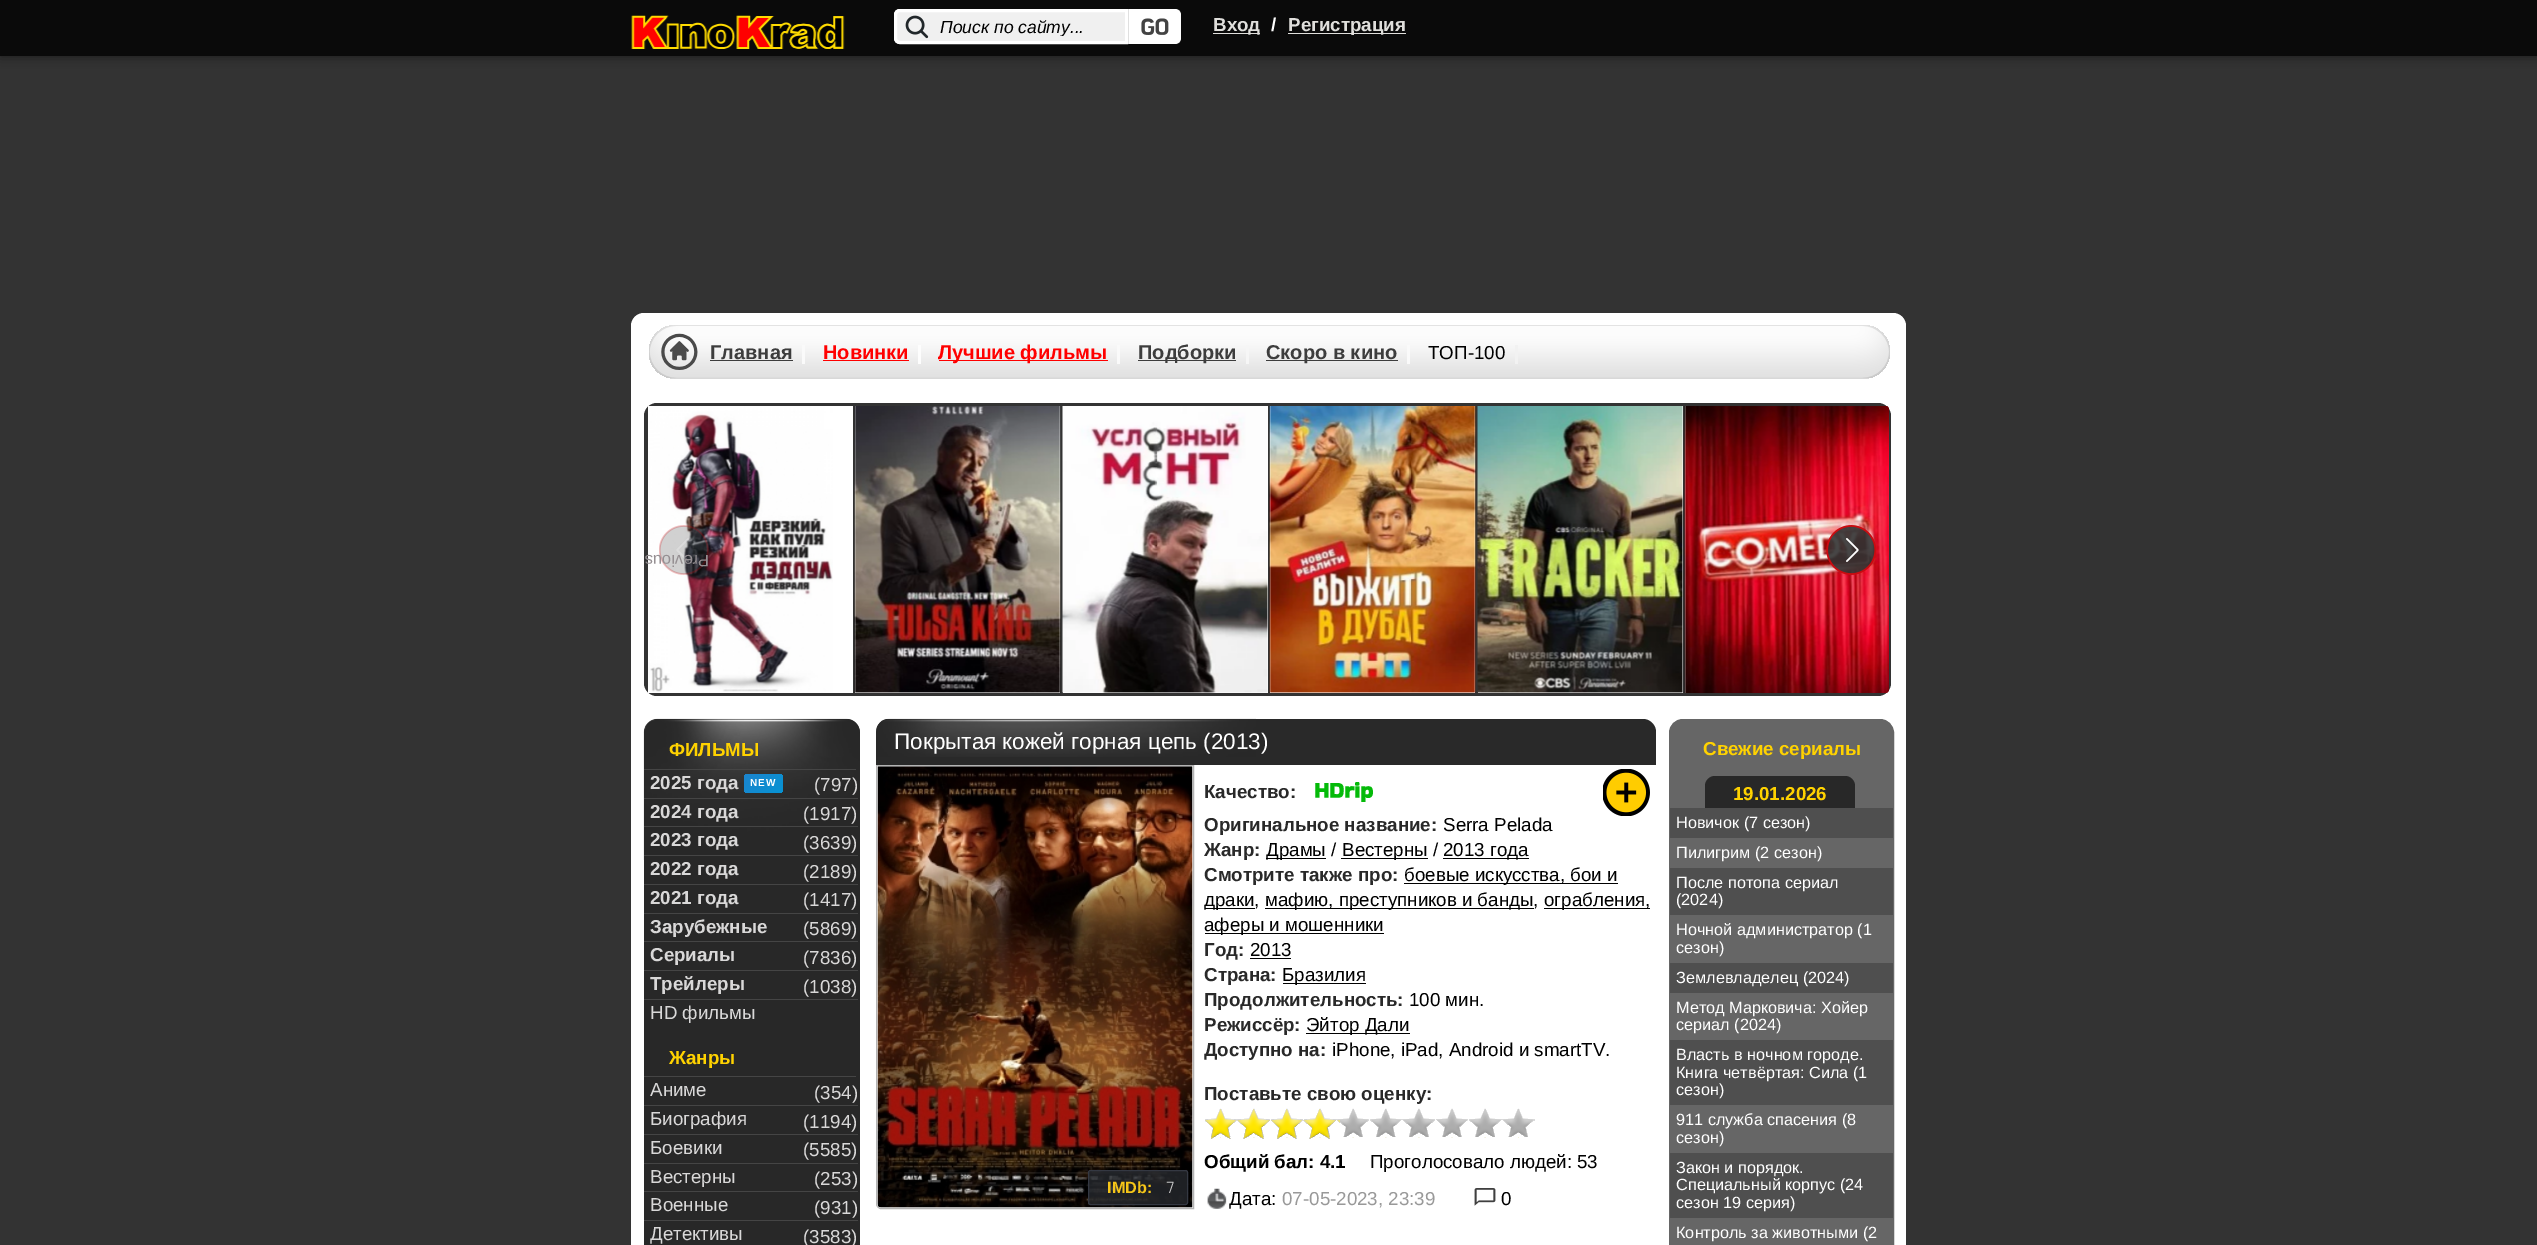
%!PS
<< /PageSize [2537 1245] /PageUsesTransparency true >> setpagedevice
/rgb { 3 { 255 div 3 1 roll } repeat setrgbcolor } def
/font { [ exch dup neg 0 0 3 -1 roll 0 0 ] selectfont } def
/alpha { dup .setfillconstantalpha .setstrokeconstantalpha } def
/roundrect { 5 dict begin { /r /h /w /y /x } { exch def } forall
  x r add y moveto x w add y 2 copy h add r arct x w add y h add x 1 index r arct
  x y h add x y r arct x y 2 copy exch w add exch r arct closepath end } def
/shadow { 12 dict begin { /a /b /q /h /w /y /x } { exch def } forall gsave /was 0 def
  9 -2 -9 { dup b mul 4 div /e exch def 1 sub .425 mul 2.718 exch exp 1 add a .99 .min exch div /now exch def
    1 1 now sub 1 was sub div sub alpha /was now def
    w h .min e 2 mul add 0 gt { x e sub y e sub w e 2 mul add h e 2 mul add
      q e add b .6 mul add w h .min 2 div e add .min 0 .max roundrect fill } if } for grestore end } def
/picture { 5 dict begin { /h /w /y /x /name } { exch def } forall
  gsave x y translate w h scale
  w h 8 [w 0 0 h 0 0] name (r) file false 3 colorimage grestore end } def
0 .pushpdf14devicefilter
0 1245 translate 1 -1 scale
4 setmiterlimit
51 51 51 rgb
0 0 2537 1245 rectfill
0 0 0 rgb
0 0 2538 56 0 6 0.5 shadow
10 10 10 rgb
0 0 2537 56 rectfill
(img/1.rgb) 631 15 214 34 picture
240 240 240 rgb
900 9 moveto 1128 9 lineto 1128 44 lineto 900 44 lineto 896.5 44 894 41.5 894 38 curveto 894 15 lineto 894 11.5 896.5 9 900 9 curveto closepath fill
(img/2.rgb) 905 15 24 24 picture
255 255 255 rgb
3 setlinewidth
900 10.5 moveto 1126.5 10.5 lineto 1126.5 42.5 lineto 900 42.5 lineto 897.5 42.5 895.5 40.5 895.5 38 curveto 895.5 15 lineto 895.5 12.5 897.5 10.5 900 10.5 curveto closepath stroke
1128 9 moveto 1175 9 lineto 1178.5 9 1181 11.5 1181 15 curveto 1181 38 lineto 1181 41.5 1178.5 44 1175 44 curveto 1128 44 lineto closepath fill
(img/3.rgb) 1141 18 28 17 picture
[
  [1128 9 1 35 224 224 224]
  [1213 33 47 1 224 223 220]
  [1288 33 118 1 224 223 220]
] { aload pop rgb rectfill } forall
255 255 255 rgb
631 313 1275 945 13 roundrect fill
(img/4.rgb) 649 325 1241 54 picture
[
  [802 345 3 19 250 250 250]
  [710 360 83 1 61 61 61]
  [918 345 3 19 253 253 253]
  [823 360 86 1 255 0 0]
  [1117 345 3 19 250 250 250]
  [939 360 169 1 255 0 0]
  [1246 345 3 19 246 246 246]
  [1138 360 98 1 61 61 61]
  [1407 345 3 19 250 250 250]
  [1266 360 132 1 61 61 61]
  [1515 345 3 19 242 242 242]
] { aload pop rgb rectfill } forall
51 51 51 rgb
644 403 1247 293 13 roundrect fill
255 255 255 rgb
833 406 20 287 rectfill
(img/5.rgb) 648 406 185 287 picture
855 406 205 287 rectfill
(img/6.rgb) 854 406 207 287 picture
1063 406 205 287 rectfill
(img/7.rgb) 1062 406 206 287 picture
1270 406 205 287 rectfill
(img/8.rgb) 1269 406 207 287 picture
1478 406 205 287 rectfill
(img/9.rgb) 1477 406 206 287 picture
(img/10.rgb) 1684 406 205 287 picture
(img/11.rgb) 659 525 50 50 picture
(img/12.rgb) 1826 525 50 50 picture
40 40 40 rgb
644 719 216 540 14 roundrect fill
(img/13.rgb) 643 718 217 142 picture
69 69 69 rgb
644 769 212 1 rectfill
644 798 214 1 rectfill
gsave 744 774 39 19 4 roundrect clip newpath
<< /ShadingType 2 /ColorSpace /DeviceRGB /Coords [879 869 764 754] /Extend [true true] /Function << /FunctionType 3 /Domain [0 1] /Functions [<< /FunctionType 2 /Domain [0 1] /C0 [0.933 0.322 0] /C1 [0.906 0 0.384] /N 1 >> << /FunctionType 2 /Domain [0 1] /C0 [0.906 0 0.384] /C1 [0 0.592 0.835] /N 1 >> << /FunctionType 2 /Domain [0 1] /C0 [0 0.592 0.835] /C1 [0.11 0.518 0.804] /N 1 >>] /Bounds [0.33 0.67] /Encode [0 1 0 1 0 1] >> >> shfill grestore
[
  [644 826 214 1 69 69 69]
  [644 855 214 1 69 69 69]
  [644 884 214 1 69 69 69]
  [644 913 214 1 69 69 69]
  [644 941 214 1 69 69 69]
  [644 970 214 1 69 69 69]
  [644 999 214 1 69 69 69]
  [644 1076 212 1 69 69 69]
  [644 1105 214 1 69 69 69]
  [644 1134 214 1 69 69 69]
  [644 1163 214 1 69 69 69]
  [644 1191 214 1 69 69 69]
  [644 1220 214 1 69 69 69]
] { aload pop rgb rectfill } forall
41 41 41 rgb
889 719 moveto 1643 719 lineto 1650 719 1656 725 1656 732 curveto 1656 765 lineto 876 765 lineto 876 732 lineto 876 725 882 719 889 719 curveto closepath fill
(img/14.rgb) 876 718 380 39 picture
(img/15.rgb) 1603 769 47 47 picture
238 238 238 rgb
876.5 765.5 moveto 1193.5 765.5 lineto 1193.5 1208.5 lineto 881 1208.5 lineto 878.5 1208.5 876.5 1206.5 876.5 1204 curveto closepath gsave fill grestore
180 180 180 rgb
1 setlinewidth
stroke
(img/16.rgb) 877 766 316 442 picture
0.8 alpha
37 40 45 rgb
1088.5 1170.5 99 34 2 roundrect fill
1 alpha
52 56 66 rgb
1088.5 1170.5 99 34 2 roundrect stroke
[
  [1266 858 60 1 0 0 0]
  [1341 858 87 1 0 0 0]
  [1443 858 86 1 0 0 0]
  [1404 883 214 1 0 0 0]
  [1205 908 50 1 0 0 0]
  [1265 908 269 1 0 0 0]
  [1544 908 106 1 0 0 0]
  [1205 933 179 1 0 0 0]
  [1250 958 41 1 0 0 0]
  [1283 983 83 1 0 0 0]
  [1306 1033 104 1 0 0 0]
] { aload pop rgb rectfill } forall
(img/17.rgb) 1205 1108 330 30 picture
(img/18.rgb) 1205 1109 135 30 picture
(img/19.rgb) 1207 1188 20 21 picture
(img/20.rgb) 1474 1188 22 18 picture
102 102 102 rgb
1669.5 719.5 224 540 13.5 roundrect gsave fill grestore
stroke
40 40 40 rgb
1715 776 moveto 1845 776 lineto 1850.5 776 1855 780.5 1855 786 curveto 1855 808 lineto 1705 808 lineto 1705 786 lineto 1705 780.5 1709.5 776 1715 776 curveto closepath fill
[
  [1670 808 223 30 79 79 79]
  [1670 868 223 47 79 79 79]
  [1670 963 223 30 79 79 79]
  [1670 1040 223 65 79 79 79]
  [1670 1153 223 65 79 79 79]
] { aload pop rgb rectfill } forall
gsave
940 16 185 20 rectclip
/LiberationSans-Italic 17.5 font
0 0 0 rgb
940 33 moveto (Поиск по сайту...) show
grestore
/LiberationSans-Bold 18.75 font
224 223 220 rgb
1213 31 moveto (Вход) show
255 255 255 rgb
1271 31 moveto (/) show
224 223 220 rgb
1288 31 moveto (Регистрация) show
/LiberationSans-Bold 20 font
61 61 61 rgb
710 359 moveto (Главная) show
255 0 0 rgb
823 359 moveto (Новинки) show
938 359 moveto (Лучшие фильмы) show
61 61 61 rgb
1138 359 moveto (Подборки) show
1266 359 moveto (Скоро в кино) show
/LiberationSans-Regular 18.75 font
0 0 0 rgb
1428 359 moveto (ТОП-100) show
/LiberationSans-Regular 16.5 font
149 143 146 rgb
gsave 709 555 translate 180 rotate 0 0 moveto (Previous) show grestore
/LiberationSans-Bold 18.75 font
255 210 0 rgb
669 756 moveto (ФИЛЬМЫ) show
217 216 216 rgb
650 789 moveto (2025 года) show
/LiberationSans-Bold 10 font
255 255 255 rgb
750 786 moveto 1 0 (NEW) ashow
/LiberationSans-Regular 18.75 font
217 216 216 rgb
814 791 moveto (\(797\)) show
/LiberationSans-Bold 18.75 font
650 818 moveto (2024 года) show
/LiberationSans-Regular 18.75 font
803 820 moveto (\(1917\)) show
/LiberationSans-Bold 18.75 font
650 846 moveto (2023 года) show
/LiberationSans-Regular 18.75 font
803 849 moveto (\(3639\)) show
/LiberationSans-Bold 18.75 font
650 875 moveto (2022 года) show
/LiberationSans-Regular 18.75 font
803 878 moveto (\(2189\)) show
/LiberationSans-Bold 18.75 font
650 904 moveto (2021 года) show
/LiberationSans-Regular 18.75 font
803 906 moveto (\(1417\)) show
/LiberationSans-Bold 18.75 font
650 933 moveto (Зарубежные) show
/LiberationSans-Regular 18.75 font
803 935 moveto (\(5869\)) show
/LiberationSans-Bold 18.75 font
650 961 moveto (Сериалы) show
/LiberationSans-Regular 18.75 font
803 964 moveto (\(7836\)) show
/LiberationSans-Bold 18.75 font
650 990 moveto (Трейлеры) show
/LiberationSans-Regular 18.75 font
803 993 moveto (\(1038\)) show
650 1019 moveto (HD фильмы) show
/LiberationSans-Bold 18.75 font
255 210 0 rgb
669 1064 moveto (Жанры) show
/LiberationSans-Regular 18.75 font
217 216 216 rgb
[
  [(Аниме) 650 1096]
  [(\(354\)) 814 1099]
  [(Биография) 650 1125]
  [(\(1194\)) 803 1128]
  [(Боевики) 650 1154]
  [(\(5585\)) 803 1156]
  [(Вестерны) 650 1183]
  [(\(253\)) 814 1185]
  [(Военные) 650 1211]
  [(\(931\)) 814 1214]
  [(Детективы) 650 1240]
  [(\(3583\)) 803 1243]
] { aload pop moveto show } forall
/LiberationSans-Regular 22.5 font
255 255 255 rgb
894 749 moveto (Покрытая кожей горная цепь \(2013\)) show
/LiberationSans-Bold 16.25 font
245 197 24 rgb
1107 1193 moveto (IMDb:) show
/Exo2-Light 16.25 font
204 204 204 rgb
1166 1193 moveto (7) show
/LiberationSans-Bold 18.75 font
41 41 41 rgb
1204 798 moveto (Качество:) show
/BakbakOne-Bold 22.5 font
4 186 9 rgb
1314 798 moveto (HDrip) show
/LiberationSans-Bold 18.75 font
41 41 41 rgb
1204 831 moveto (Оригинальное название:) show
/LiberationSans-Regular 18.75 font
0 0 0 rgb
1443 831 moveto (Serra Pelada) show
/LiberationSans-Bold 18.75 font
41 41 41 rgb
1204 856 moveto (Жанр:) show
/LiberationSans-Regular 18.75 font
0 0 0 rgb
[
  [(Драмы /) 1266 856]
  [(Вестерны /) 1342 856]
  [(2013 года) 1443 856]
] { aload pop moveto show } forall
/LiberationSans-Bold 18.75 font
41 41 41 rgb
1204 881 moveto (Смотрите также про:) show
/LiberationSans-Regular 18.75 font
0 0 0 rgb
[
  [(боевые искусства, бои и) 1404 881]
  [(драки,) 1204 906]
  [(мафию, преступников и банды,) 1265 906]
  [(ограбления,) 1544 906]
  [(аферы и мошенники) 1204 931]
] { aload pop moveto show } forall
/LiberationSans-Bold 18.75 font
41 41 41 rgb
1204 956 moveto (Год:) show
/LiberationSans-Regular 18.75 font
0 0 0 rgb
1250 956 moveto (2013) show
/LiberationSans-Bold 18.75 font
41 41 41 rgb
1204 981 moveto (Страна:) show
/LiberationSans-Regular 18.75 font
0 0 0 rgb
1282 981 moveto (Бразилия) show
/LiberationSans-Bold 18.75 font
41 41 41 rgb
1204 1006 moveto (Продолжительность:) show
/LiberationSans-Regular 18.75 font
0 0 0 rgb
1409 1006 moveto (100 мин.) show
/LiberationSans-Bold 18.75 font
41 41 41 rgb
1204 1031 moveto (Режиссёр:) show
/LiberationSans-Regular 18.75 font
0 0 0 rgb
1306 1031 moveto (Эйтор Дали) show
/LiberationSans-Bold 18.75 font
41 41 41 rgb
1204 1056 moveto (Доступно на:) show
/LiberationSans-Regular 18.75 font
0 0 0 rgb
1332 1056 moveto (iPhone, iPad, Android и smartTV.) show
/LiberationSans-Bold 18.75 font
41 41 41 rgb
1204 1100 moveto (Поставьте свою оценку:) show
0 0 0 rgb
1204 1168 moveto (Общий бал: 4.1) show
/LiberationSans-Regular 18.75 font
1370 1168 moveto (Проголосовало людей: 53) show
1229 1205 moveto (Дата:) show
153 153 153 rgb
1282 1205 moveto (07-05-2023, 23:39) show
0 0 0 rgb
1501 1205 moveto (0) show
/LiberationSans-Bold 18.75 font
255 210 0 rgb
1703 755 moveto (Свежие сериалы) show
1733 800 moveto (19.01.2026) show
/LiberationSans-Regular 16.25 font
255 255 255 rgb
[
  [(Новичок \(7 сезон\)) 1676 828]
  [(Пилигрим \(2 сезон\)) 1676 858]
  [(После потопа сериал) 1676 888]
  [(\(2024\)) 1676 905]
  [(Ночной администратор \(1) 1676 935]
  [(сезон\)) 1676 953]
  [(Землевладелец \(2024\)) 1676 983]
  [(Метод Марковича: Хойер) 1676 1013]
  [(сериал \(2024\)) 1676 1030]
  [(Власть в ночном городе.) 1676 1060]
  [(Книга четвёртая: Сила \(1) 1676 1078]
  [(сезон\)) 1676 1095]
  [(911 служба спасения \(8) 1676 1125]
  [(сезон\)) 1676 1143]
  [(Закон и порядок.) 1676 1173]
  [(Специальный корпус \(24) 1676 1190]
  [(сезон 19 серия\)) 1676 1208]
  [(Контроль за животными \(2) 1676 1238]
] { aload pop moveto show } forall
.poppdf14devicefilter showpage
